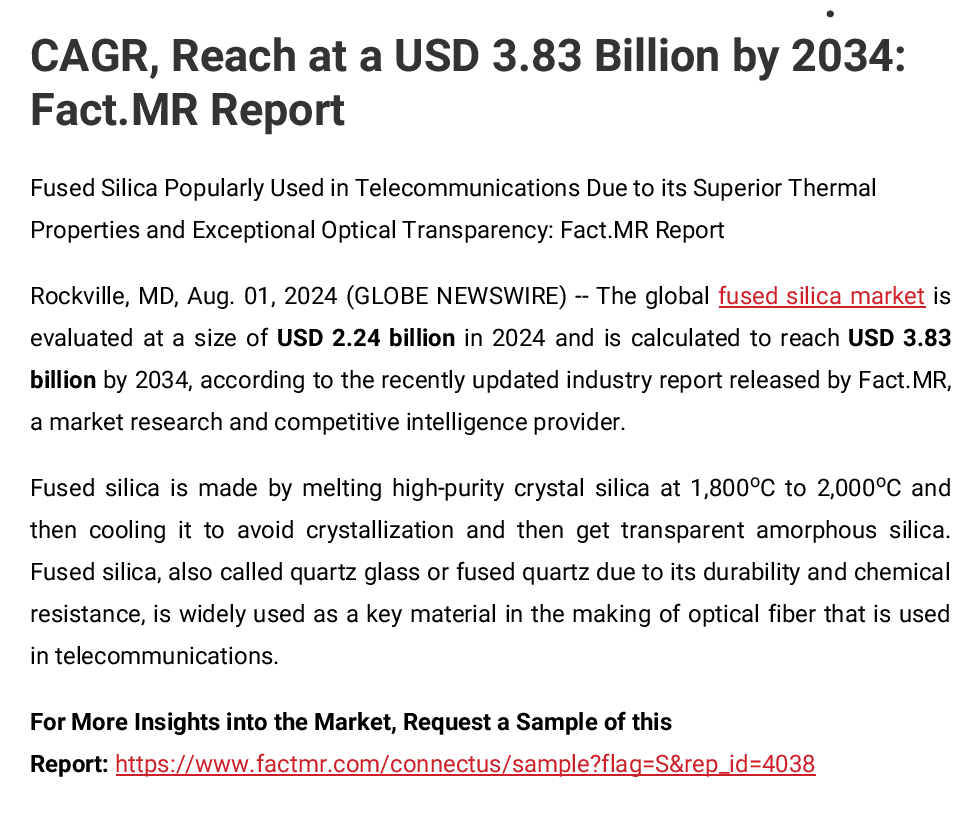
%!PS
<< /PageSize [980 824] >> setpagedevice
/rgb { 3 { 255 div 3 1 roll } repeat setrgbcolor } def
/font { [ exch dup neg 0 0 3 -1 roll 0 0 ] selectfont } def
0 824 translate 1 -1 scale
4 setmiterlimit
255 255 255 rgb
0 0 980 824 rectfill
206 32 40 rgb
719 306 207 2 rectfill
116 774 700 2 rectfill
/Roboto-Bold 45 font
51 51 51 rgb
[
  [(.) 824 17]
  [(CAGR, Reach at a USD 3.83 Billion by 2034:) 30 71]
  [(Fact.MR Report) 30 125]
] { aload pop moveto show } forall
/Roboto-Regular 24 font
0 0 0 rgb
30 196 moveto (Fused Silica Popularly Used in Telecommunications Due to its Superior Thermal) show
30 238 moveto (Properties and Exceptional Optical Transparency: Fact.MR Report) show
30 304 moveto 2 0 32 (Rockville, MD, Aug.) widthshow
244 304 moveto 2 0 32 (01, 2024) widthshow
346 304 moveto 2 0 32 (\(GLOBE NEWSWIRE\) -- The global) widthshow
206 32 40 rgb
718 304 moveto 2 0 32 (fused silica market) widthshow
0 0 0 rgb
933 304 moveto (is) show
30 346 moveto 3 0 32 (evaluated at a size of) widthshow
/Roboto-Bold 24 font
277 346 moveto 3 0 32 (USD 2.24 billion) widthshow
/Roboto-Regular 24 font
464 346 moveto 3 0 32 (in 2024 and is calculated to reach) widthshow
/Roboto-Bold 24 font
848 346 moveto 3 0 32 (USD 3.83) widthshow
30 388 moveto (billion) show
/Roboto-Regular 24 font
103 388 moveto 0.75 0 32 (by 2034, according to the recently updated industry report released by Fact.MR,) widthshow
30 430 moveto (a market research and competitive intelligence provider.) show
30 496 moveto 3.75 0 32 (Fused silica is made by melting high-purity crystal silica at 1,800) widthshow
/Roboto-Regular 18 font
750 487 moveto (o) show
/Roboto-Regular 24 font
760 496 moveto 3.75 0 32 (C to 2,000) widthshow
/Roboto-Regular 18 font
876 487 moveto (o) show
/Roboto-Regular 24 font
886 496 moveto 3.75 0 32 (C and) widthshow
30 538 moveto 5.6 0 32 (then cooling it to avoid crystallization and then get transparent amorphous silica.) widthshow
30 580 moveto 0.5 0 32 (Fused silica, also called quartz glass or fused quartz due to its durability and chemical) widthshow
30 622 moveto 1.5 0 32 (resistance, is widely used as a key material in the making of optical fiber that is used) widthshow
30 664 moveto (in telecommunications.) show
/Roboto-Bold 24 font
30 730 moveto (For More Insights into the Market, Request a Sample of this) show
30 772 moveto (Report:) show
/Roboto-Regular 24 font
206 32 40 rgb
115 772 moveto (https://www.factmr.com/connectus/sample?flag=S&rep_id=4038) show
showpage
